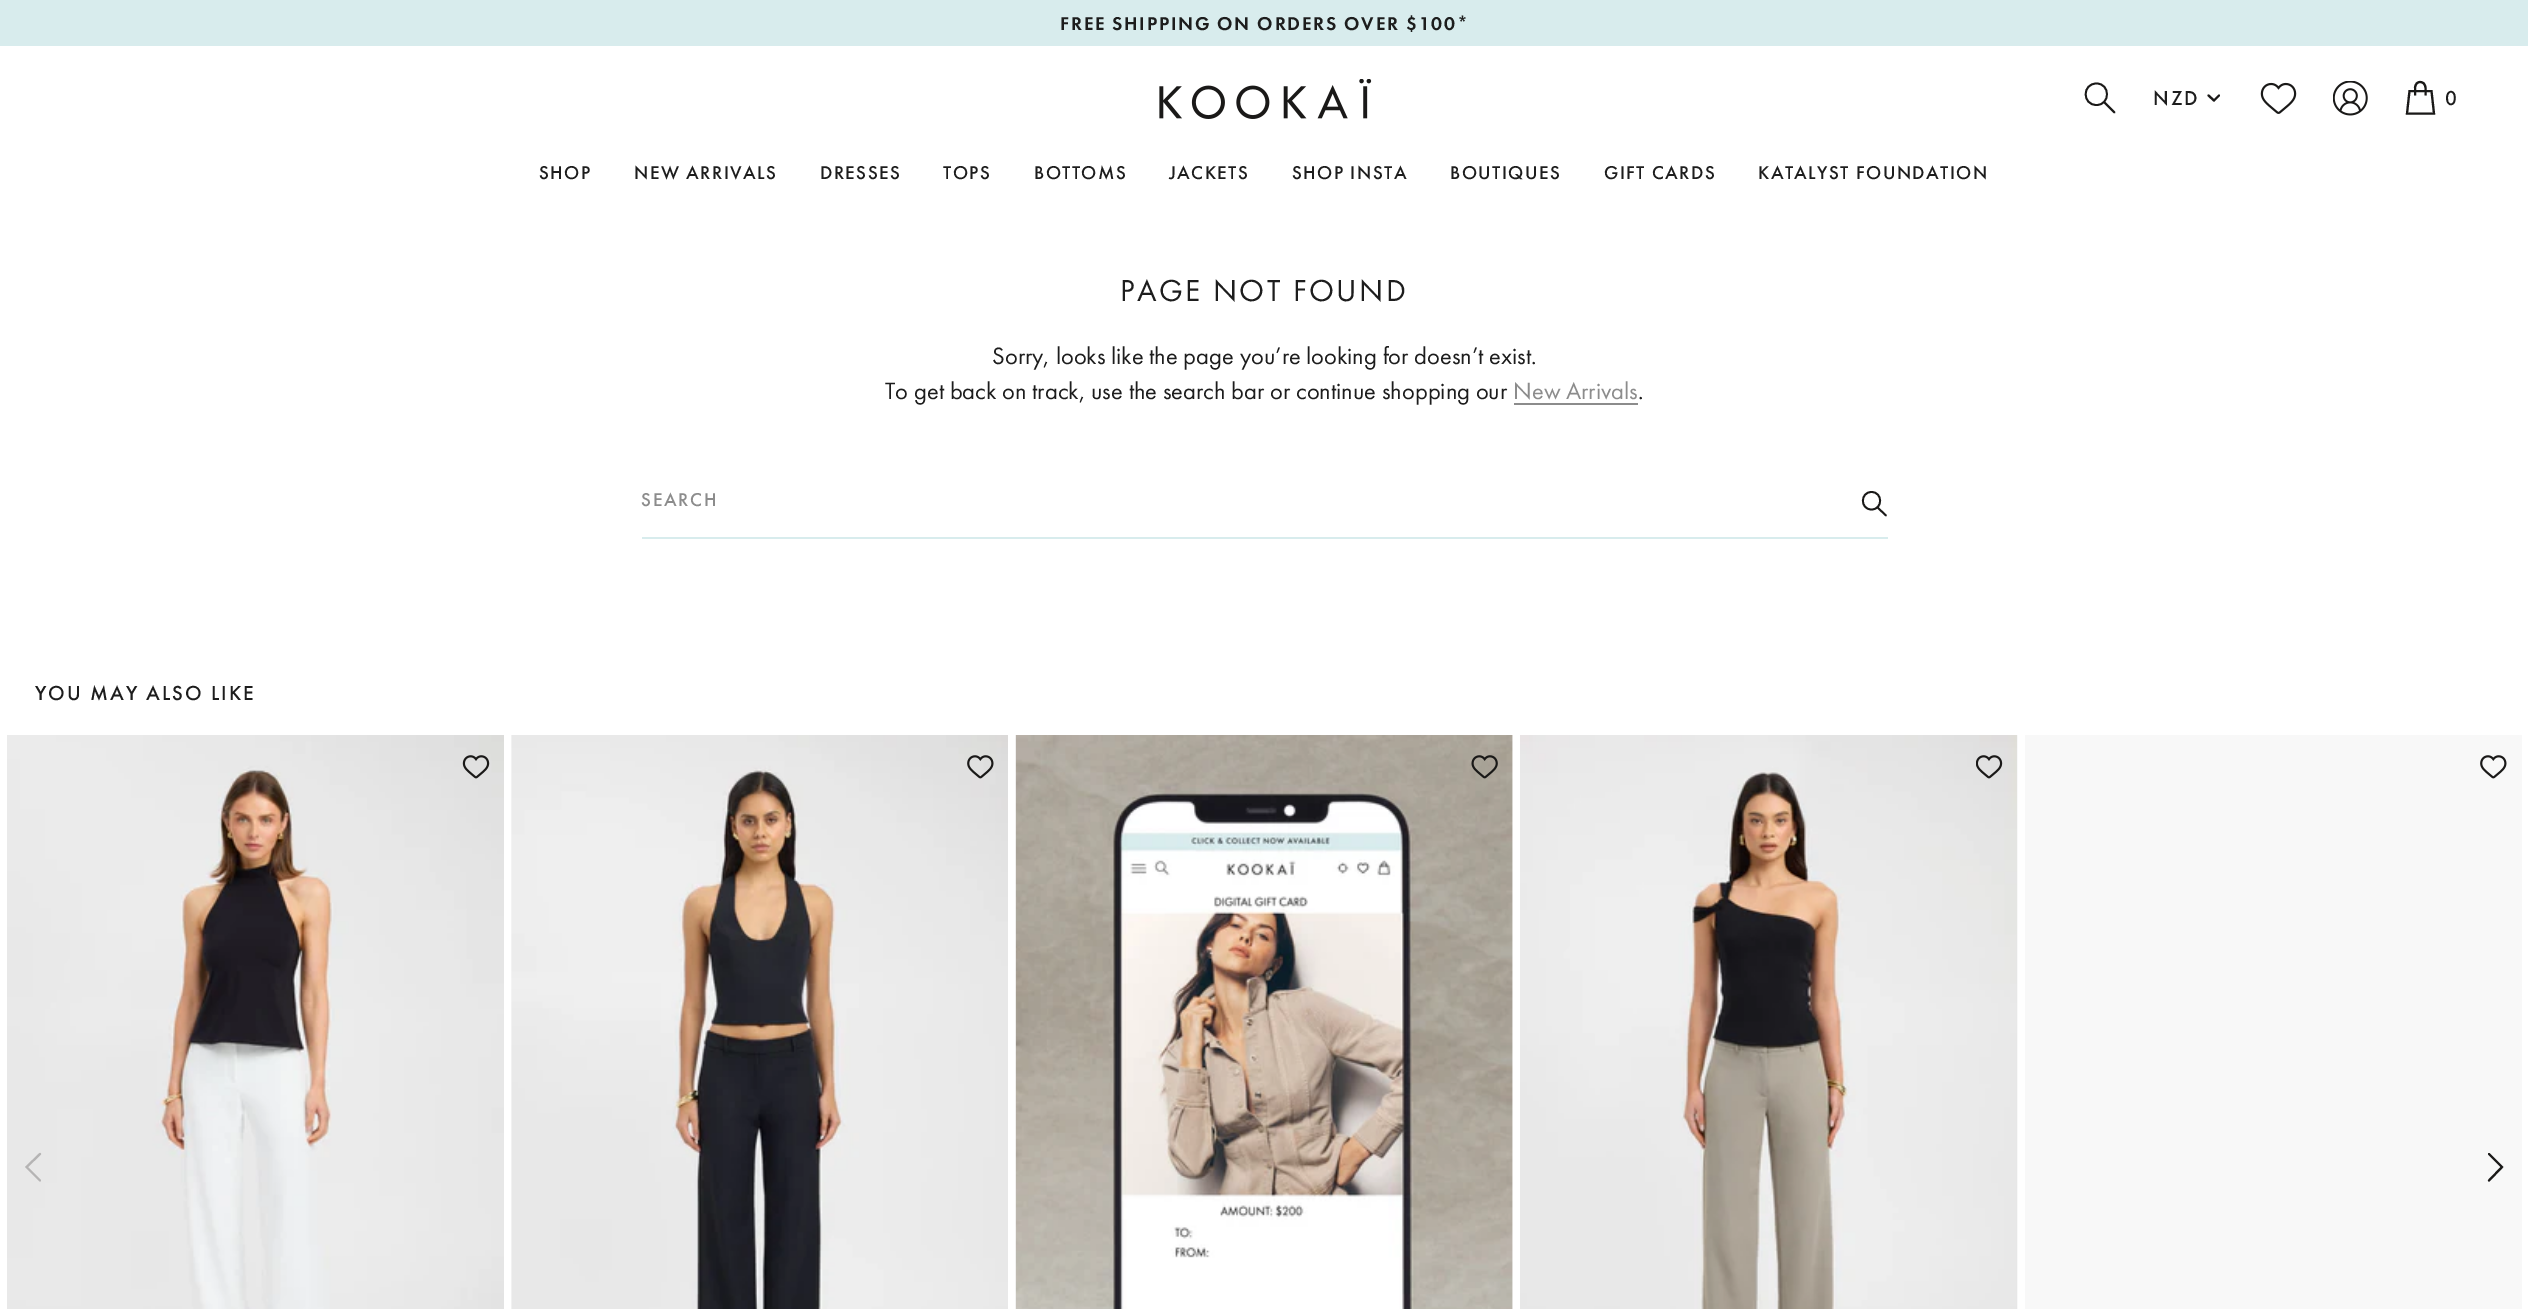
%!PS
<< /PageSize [2528 1309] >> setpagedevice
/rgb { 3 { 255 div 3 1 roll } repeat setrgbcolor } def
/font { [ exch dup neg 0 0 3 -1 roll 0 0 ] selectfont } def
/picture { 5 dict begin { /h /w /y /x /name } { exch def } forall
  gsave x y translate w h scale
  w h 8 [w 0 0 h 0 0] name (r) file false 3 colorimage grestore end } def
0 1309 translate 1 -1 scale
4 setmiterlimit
255 255 255 rgb
0 0 2528 1309 rectfill
216 236 237 rgb
0 0 2528 46 rectfill
(img/1.rgb) 1159 79 213 40 picture
26 25 24 rgb
1.8 setlinewidth
1 setlinecap
1 setlinejoin
2096.5 105 moveto 2110.5 105 2110.5 83.5 2096.5 83.5 curveto 2082 83.5 2082 105 2096.5 105 curveto closepath 2104.5 102.5 moveto 2114.5 112.5 lineto stroke
2.1 setlinewidth
0 setlinejoin
2208.5 95.5 moveto 2214 100.5 lineto 2219 95.5 lineto stroke
(img/2.rgb) 2260 82 37 32 picture
(img/3.rgb) 2333 81 35 35 picture
0 setlinecap
2409.5 91 moveto 2431.5 91 lineto 2434 113.5 lineto 2407 113.5 lineto closepath 2425.5 95.5 moveto 2425.5 88.5 lineto 2425.5 84 2423 82 2420 82 curveto 2417.5 82 2415 84 2415 88.5 curveto 2415 95.5 lineto stroke
140 140 140 rgb
1514 403 124 2 rectfill
216 236 237 rgb
642 537 1246 2 rectfill
26 25 24 rgb
1.8 setlinewidth
1 setlinecap
1 setlinejoin
1871.5 509.5 moveto 1883 509.5 1883 492 1871.5 492 curveto 1860 492 1860 509.5 1871.5 509.5 curveto closepath 1877.5 507.5 moveto 1886 515.5 lineto stroke
(img/4.rgb) 7 735 497 574 picture
(img/5.rgb) 462 755 28 24 picture
248 248 248 rgb
511 735 1 574 rectfill
(img/6.rgb) 511 735 497 574 picture
(img/7.rgb) 967 755 27 24 picture
1015 735 1 574 rectfill
(img/8.rgb) 1015 735 498 574 picture
(img/9.rgb) 1471 755 27 24 picture
2016 735 2 574 rectfill
(img/10.rgb) 1520 735 497 574 picture
(img/11.rgb) 1976 755 27 24 picture
2025 735 497 574 rectfill
(img/12.rgb) 2480 755 27 24 picture
181 180 180 rgb
2.1 setlinewidth
0 setlinejoin
40 1154 moveto 26.5 1167 lineto 40 1180.5 lineto stroke
26 25 24 rgb
2489 1180.5 moveto 2502 1167 lineto 2489 1154 lineto stroke
/FuturaPT-Medium 19.25 font
29 29 29 rgb
1060 30 moveto 1.75 0 (FREE SHIPPING ON ORDERS OVER $100*) ashow
/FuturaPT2-Medium 21 font
2153 105 moveto 2.1 0 (NZD) ashow
2445 105 moveto 2.1 0 (0) ashow
/FuturaPT2-Medium 19.25 font
539 179 moveto 1.4 0 (SHOP) ashow
634 179 moveto 1.4 0 (NEW ARRIVALS) ashow
820 179 moveto 1.4 0 (DRESSES) ashow
943 179 moveto 1.4 0 (TOPS) ashow
1034 179 moveto 1.4 0 (BOTTOMS) ashow
1169 179 moveto 1.4 0 (JACKETS) ashow
1292 179 moveto 1.4 0 (SHOP INSTA) ashow
1450 179 moveto 1.4 0 (BOUTIQUES) ashow
1604 179 moveto 1.4 0 (GIFT CARDS) ashow
1758 179 moveto 1.4 0 (KATALYST FOUNDATION) ashow
/FuturaPT-Regular 31.5 font
1120 301 moveto 2.5 0 (PAGE NOT FOUND) ashow
/FuturaPT-Regular 24.5 font
992 364 moveto (Sorry, looks like the page you’re looking for doesn’t exist.) show
885 399 moveto (To get back on track, use the search bar or continue shopping our) show
140 140 140 rgb
1513 399 moveto (New Arrivals) show
29 29 29 rgb
1638 399 moveto (.) show
/FuturaPT2-Medium 19.25 font
140 140 140 rgb
641 506 moveto 1.75 0 (SEARCH) ashow
/FuturaPT2-Medium 21 font
29 29 29 rgb
35 700 moveto 2.1 0 (YOU MAY ALSO LIKE) ashow
showpage
